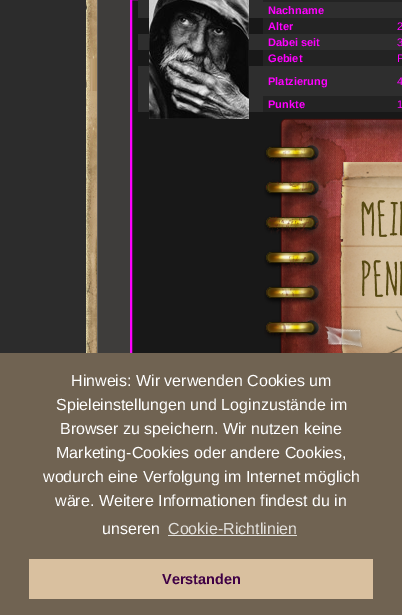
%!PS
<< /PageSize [402 615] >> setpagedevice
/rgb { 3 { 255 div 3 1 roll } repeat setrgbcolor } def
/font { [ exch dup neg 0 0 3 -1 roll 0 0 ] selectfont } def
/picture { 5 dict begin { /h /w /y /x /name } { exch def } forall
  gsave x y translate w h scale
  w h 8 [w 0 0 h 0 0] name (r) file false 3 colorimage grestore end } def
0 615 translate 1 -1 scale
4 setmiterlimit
44 44 44 rgb
0 0 402 615 rectfill
(img/1.rgb) 86 0 44 353 picture
24 24 24 rgb
132 0 270 353 rectfill
255 0 255 rgb
2 setlinewidth
131 -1 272 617 rectstroke
[
  [138 0 125 2 46 46 46]
  [263 0 139 2 35 35 35]
  [138 2 264 16 46 46 46]
  [138 34 264 16 46 46 46]
  [138 66 264 30 46 46 46]
  [138 96 125 16 46 46 46]
] { aload pop rgb rectfill } forall
(img/2.rgb) 149 0 100 119 picture
[
  [263 18 139 16 35 35 35]
  [263 50 139 16 35 35 35]
  [263 96 139 16 35 35 35]
] { aload pop rgb rectfill } forall
(img/3.rgb) 264 118 138 235 picture
[
  [0 353 402 262 112 99 82]
  [168 535 129 1 226 224 220]
  [29 559 344 40 217 192 159]
] { aload pop rgb rectfill } forall
/LiberationSans-Bold 11 font
255 0 255 rgb
268 14 moveto (Nachname) show
268 30 moveto (Alter) show
/LiberationSans-Regular 11 font
397 30 moveto (2) show
/LiberationSans-Bold 11 font
268 46 moveto (Dabei seit) show
/LiberationSans-Regular 11 font
397 46 moveto (3) show
/LiberationSans-Bold 11 font
268 62 moveto (Gebiet) show
/LiberationSans-Regular 11 font
397 62 moveto (P) show
/LiberationSans-Bold 11 font
268 85 moveto (Platzierung) show
/LiberationSans-Regular 11 font
397 85 moveto (4) show
/LiberationSans-Bold 11 font
268 108 moveto (Punkte) show
/LiberationSans-Regular 11 font
397 108 moveto (1) show
/LiberationSans-Regular 16 font
255 255 255 rgb
[
  [(Hinweis: Wir verwenden Cookies um) 71 386]
  [(Spieleinstellungen und Loginzustände im) 56 410]
  [(Browser zu speichern. Wir nutzen keine) 60 434]
  [(Marketing-Cookies oder andere Cookies,) 56 458]
  [(wodurch eine Verfolgung im Internet möglich) 43 482]
  [(wäre. Weitere Informationen findest du in) 55 506]
  [(unseren) 102 534]
] { aload pop moveto show } forall
226 224 220 rgb
168 534 moveto (Cookie-Richtlinien) show
/LiberationSans-Bold 14.5 font
63 0 69 rgb
162 584 moveto (Verstanden) show
showpage
